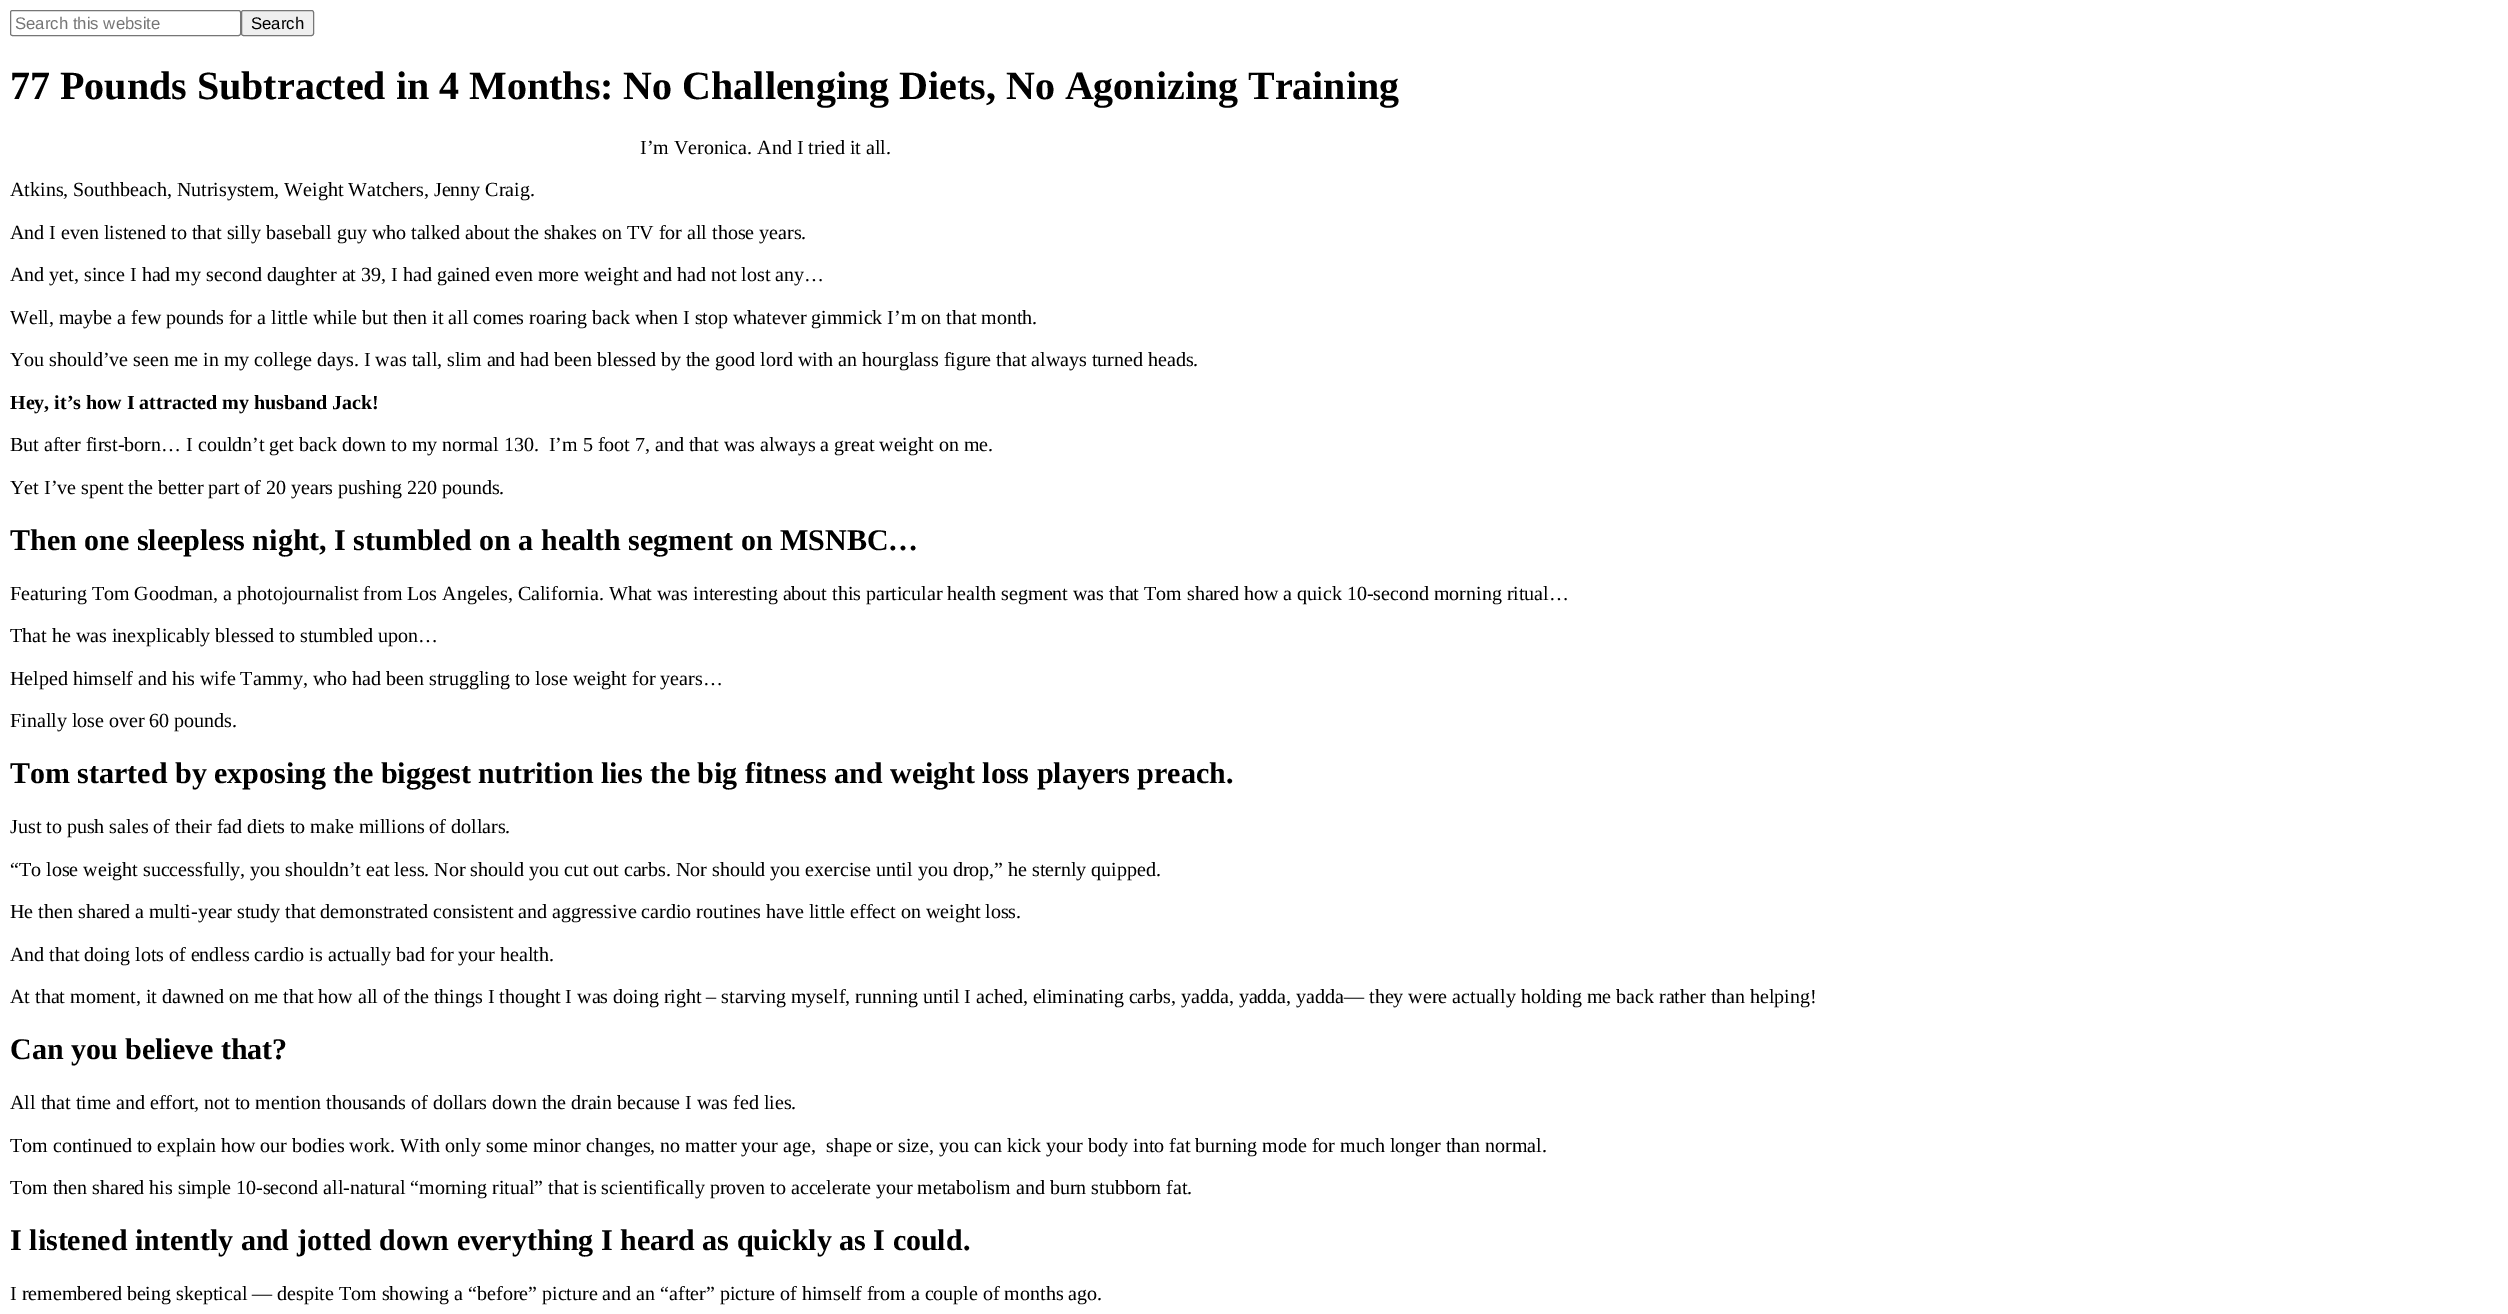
%!PS
<< /PageSize [2508 1314] >> setpagedevice
/rgb { 3 { 255 div 3 1 roll } repeat setrgbcolor } def
/font { [ exch dup neg 0 0 3 -1 roll 0 0 ] selectfont } def
/roundrect { 5 dict begin { /r /h /w /y /x } { exch def } forall
  x r add y moveto x w add y 2 copy h add r arct x w add y h add x 1 index r arct
  x y h add x y r arct x y 2 copy exch w add exch r arct closepath end } def
0 1314 translate 1 -1 scale
4 setmiterlimit
255 255 255 rgb
0 0 2508 1314 rectfill
118 118 118 rgb
10.5 10.5 230 25 2 roundrect stroke
239 239 239 rgb
241.5 10.5 72 25 2 roundrect gsave fill grestore
118 118 118 rgb
stroke
/LiberationSans-Regular 16.75 font
117 117 117 rgb
15 29 moveto (Search this website) show
0 0 0 rgb
251 29 moveto (Search) show
/LiberationSerif-Bold 40 font
10 99 moveto (77 Pounds Subtracted in 4 Months: No Challenging Diets, No Agonizing Training) show
/LiberationSerif-Regular 20 font
[
  [(I’m Veronica. And I tried it all.) 640 154]
  [(Atkins, Southbeach, Nutrisystem, Weight Watchers, Jenny Craig.) 10 196]
  [(And I even listened to that silly baseball guy who talked about the shakes on TV for all those years.) 10 239]
  [(And yet, since I had my second daughter at 39, I had gained even more weight and had not lost any…) 10 281]
  [(Well, maybe a few pounds for a little while but then it all comes roaring back when I stop whatever gimmick I’m on that month.) 10 324]
  [(You should’ve seen me in my college days. I was tall, slim and had been blessed by the good lord with an hourglass figure that always turned heads.) 10 366]
] { aload pop moveto show } forall
/LiberationSerif-Bold 20 font
10 409 moveto (Hey, it’s how I attracted my husband Jack!) show
/LiberationSerif-Regular 20 font
10 451 moveto (But after first-born… I couldn’t get back down to my normal 130.  I’m 5 foot 7, and that was always a great weight on me.) show
10 494 moveto (Yet I’ve spent the better part of 20 years pushing 220 pounds.) show
/LiberationSerif-Bold 30 font
10 550 moveto (Then one sleepless night, I stumbled on a health segment on MSNBC…) show
/LiberationSerif-Regular 20 font
[
  [(Featuring Tom Goodman, a photojournalist from Los Angeles, California. What was interesting about this particular health segment was that Tom shared how a quick 10-second morning ritual…) 10 600]
  [(That he was inexplicably blessed to stumbled upon…) 10 642]
  [(Helped himself and his wife Tammy, who had been struggling to lose weight for years…) 10 685]
  [(Finally lose over 60 pounds.) 10 727]
] { aload pop moveto show } forall
/LiberationSerif-Bold 30 font
10 783 moveto (Tom started by exposing the biggest nutrition lies the big fitness and weight loss players preach.) show
/LiberationSerif-Regular 20 font
[
  [(Just to push sales of their fad diets to make millions of dollars.) 10 833]
  [(“To lose weight successfully, you shouldn’t eat less. Nor should you cut out carbs. Nor should you exercise until you drop,” he sternly quipped.) 10 876]
  [(He then shared a multi-year study that demonstrated consistent and aggressive cardio routines have little effect on weight loss.) 10 918]
  [(And that doing lots of endless cardio is actually bad for your health.) 10 961]
  [(At that moment, it dawned on me that how all of the things I thought I was doing right – starving myself, running until I ached, eliminating carbs, yadda, yadda, yadda— they were actually holding me back rather than helping!) 10 1003]
] { aload pop moveto show } forall
/LiberationSerif-Bold 30 font
10 1059 moveto (Can you believe that?) show
/LiberationSerif-Regular 20 font
[
  [(All that time and effort, not to mention thousands of dollars down the drain because I was fed lies.) 10 1109]
  [(Tom continued to explain how our bodies work. With only some minor changes, no matter your age,  shape or size, you can kick your body into fat burning mode for much longer than normal.) 10 1152]
  [(Tom then shared his simple 10-second all-natural “morning ritual” that is scientifically proven to accelerate your metabolism and burn stubborn fat.) 10 1194]
] { aload pop moveto show } forall
/LiberationSerif-Bold 30 font
10 1250 moveto (I listened intently and jotted down everything I heard as quickly as I could.) show
/LiberationSerif-Regular 20 font
10 1300 moveto (I remembered being skeptical — despite Tom showing a “before” picture and an “after” picture of himself from a couple of months ago.) show
showpage
